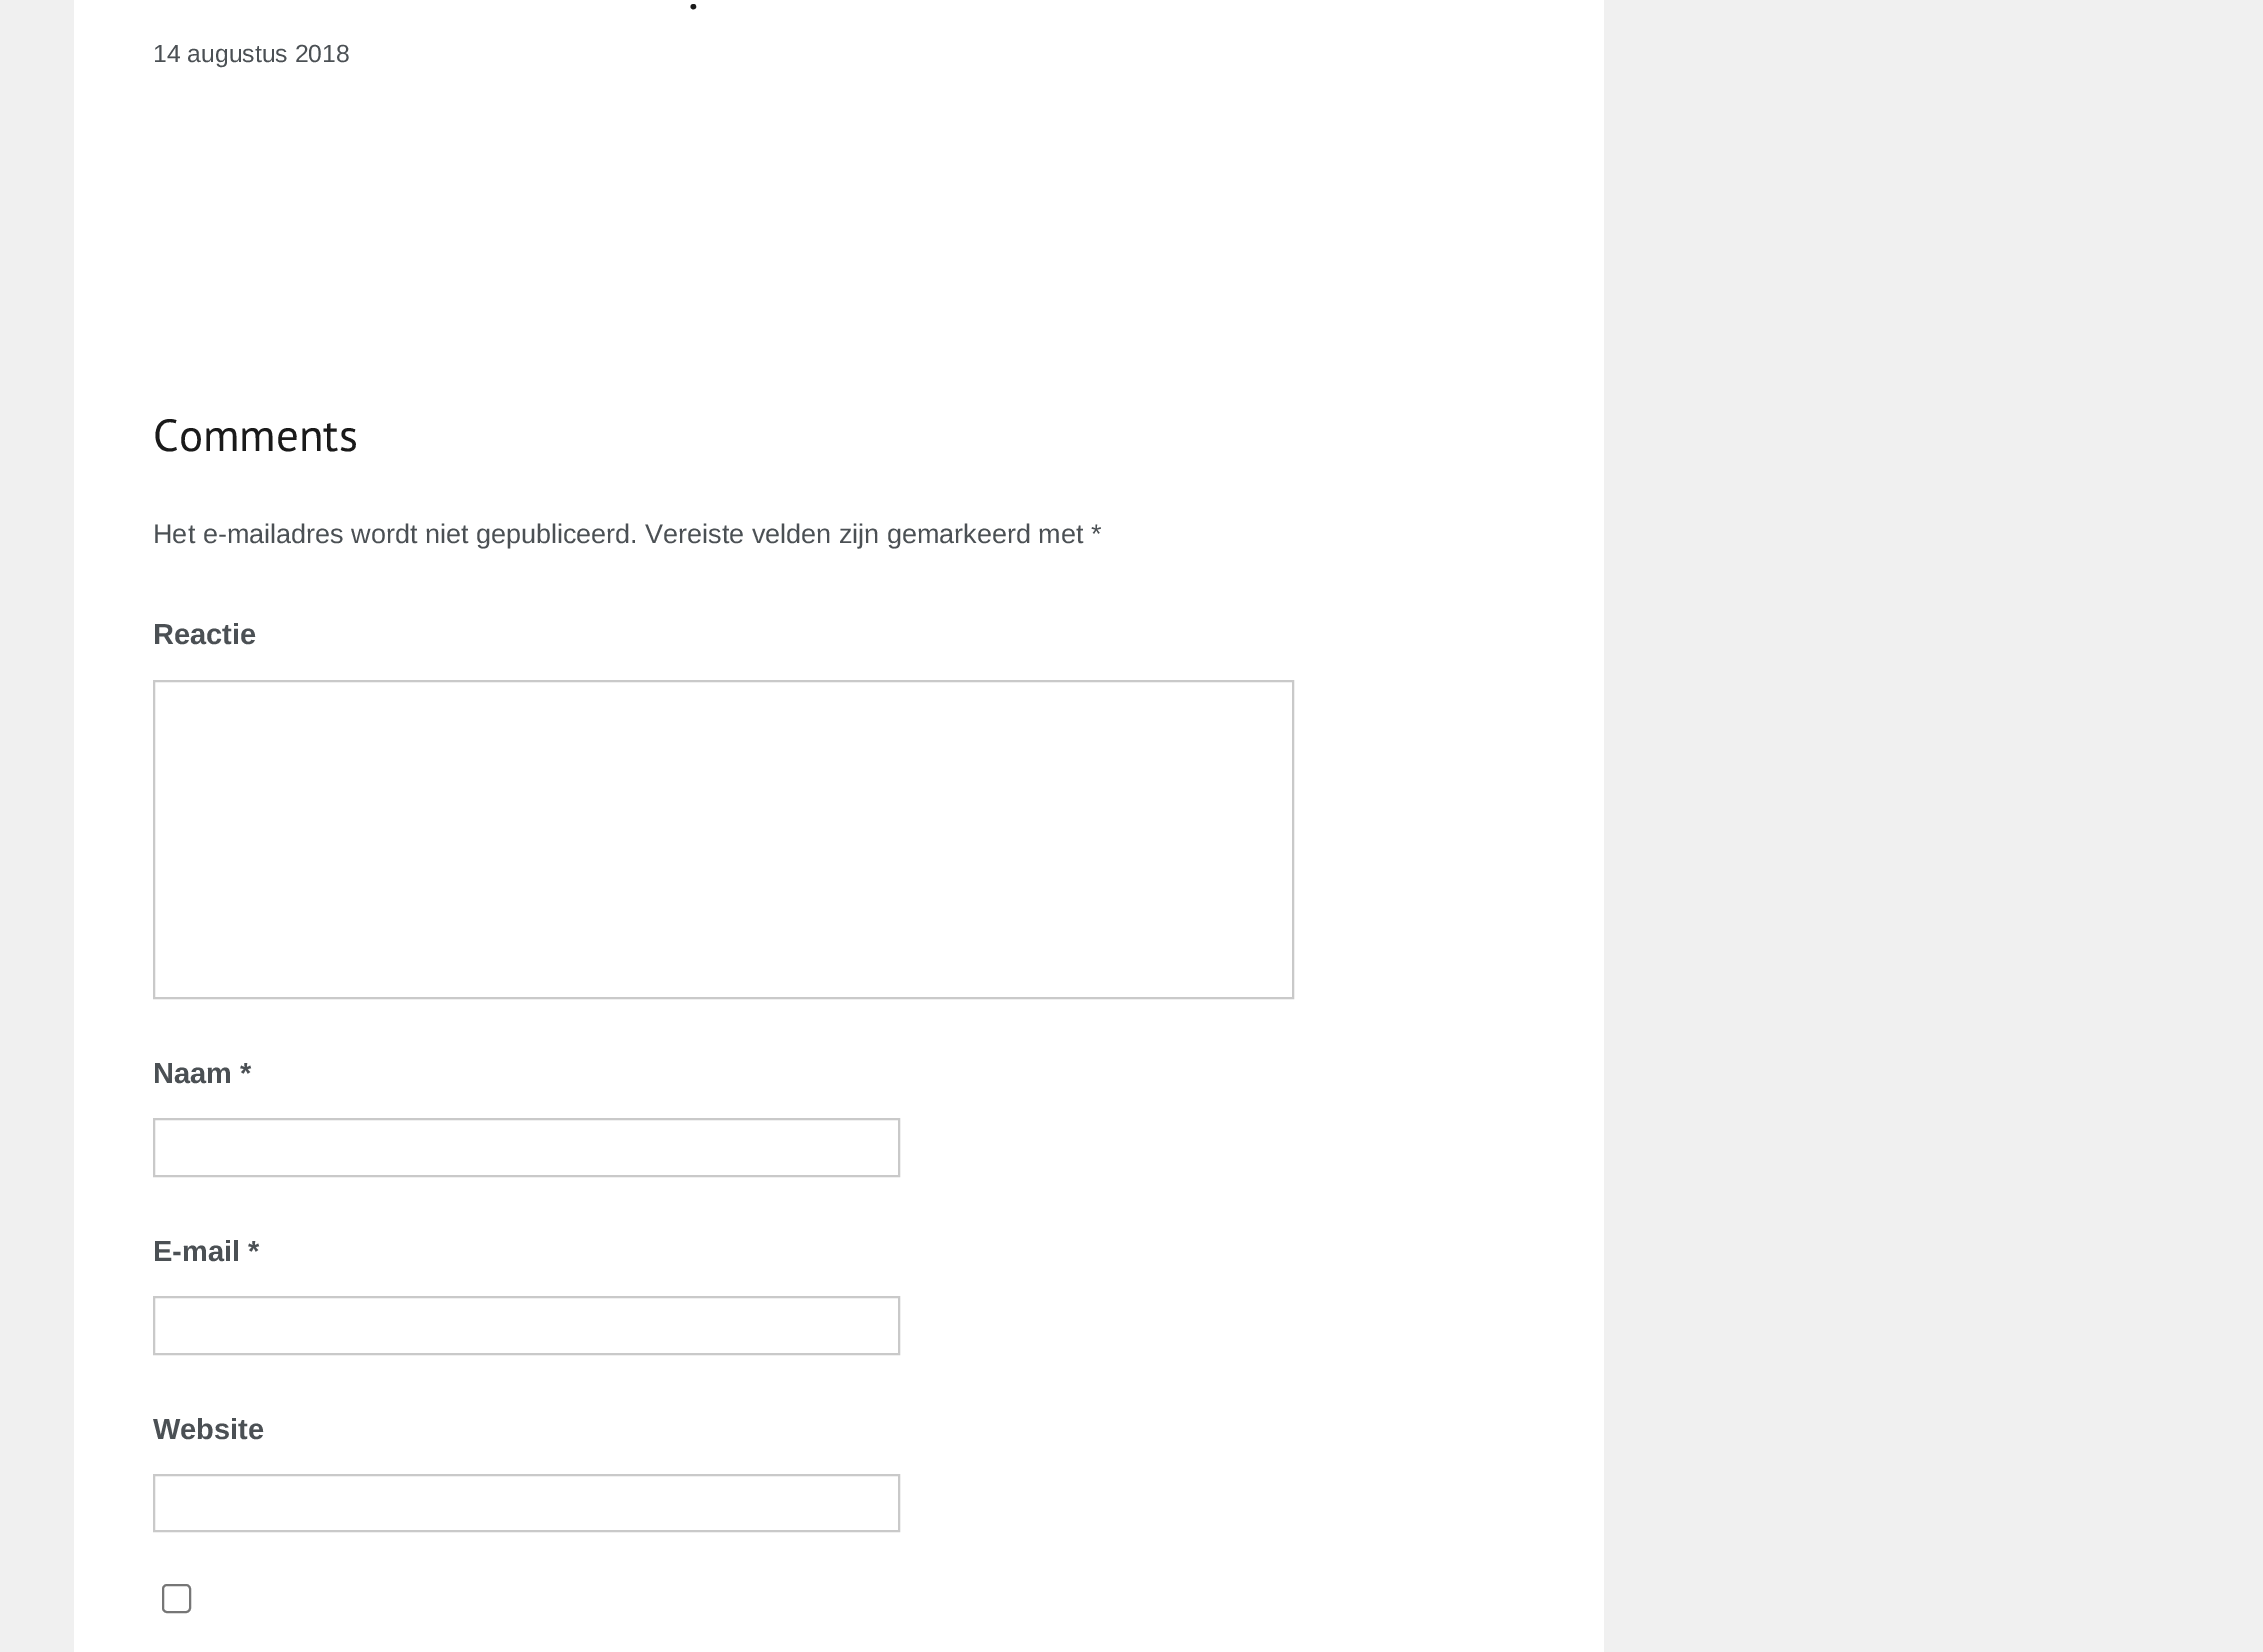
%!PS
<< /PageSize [2263 1652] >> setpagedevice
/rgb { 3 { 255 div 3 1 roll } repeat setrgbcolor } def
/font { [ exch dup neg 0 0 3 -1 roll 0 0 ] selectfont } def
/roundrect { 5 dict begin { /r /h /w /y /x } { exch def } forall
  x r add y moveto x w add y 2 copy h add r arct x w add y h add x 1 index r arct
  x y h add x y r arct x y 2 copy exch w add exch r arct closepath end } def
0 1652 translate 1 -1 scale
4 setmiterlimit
240 240 240 rgb
0 0 2263 1652 rectfill
255 255 255 rgb
74 0 1530 1652 rectfill
201 201 201 rgb
2 setlinewidth
154 681 1139 317 rectstroke
154 1119 745 57 rectstroke
154 1297 745 57 rectstroke
154 1475 745 56 rectstroke
118 118 118 rgb
163 1585 27 27 4 roundrect stroke
/PTSans-Bold 36 font
26 26 26 rgb
689 9 moveto (.) show
/LiberationSans-Regular 24.75 font
75 80 84 rgb
153 62 moveto (14 augustus 2018) show
/PTSans-Regular 45 font
26 26 26 rgb
153 451 moveto (Comments) show
/LiberationSans-Regular 27 font
75 80 84 rgb
153 543 moveto (Het e-mailadres wordt niet gepubliceerd. Vereiste velden zijn gemarkeerd met *) show
/LiberationSans-Bold 29 font
[
  [(Reactie) 153 644]
  [(Naam *) 153 1083]
  [(E-mail *) 153 1261]
  [(Website) 153 1439]
] { aload pop moveto show } forall
showpage
